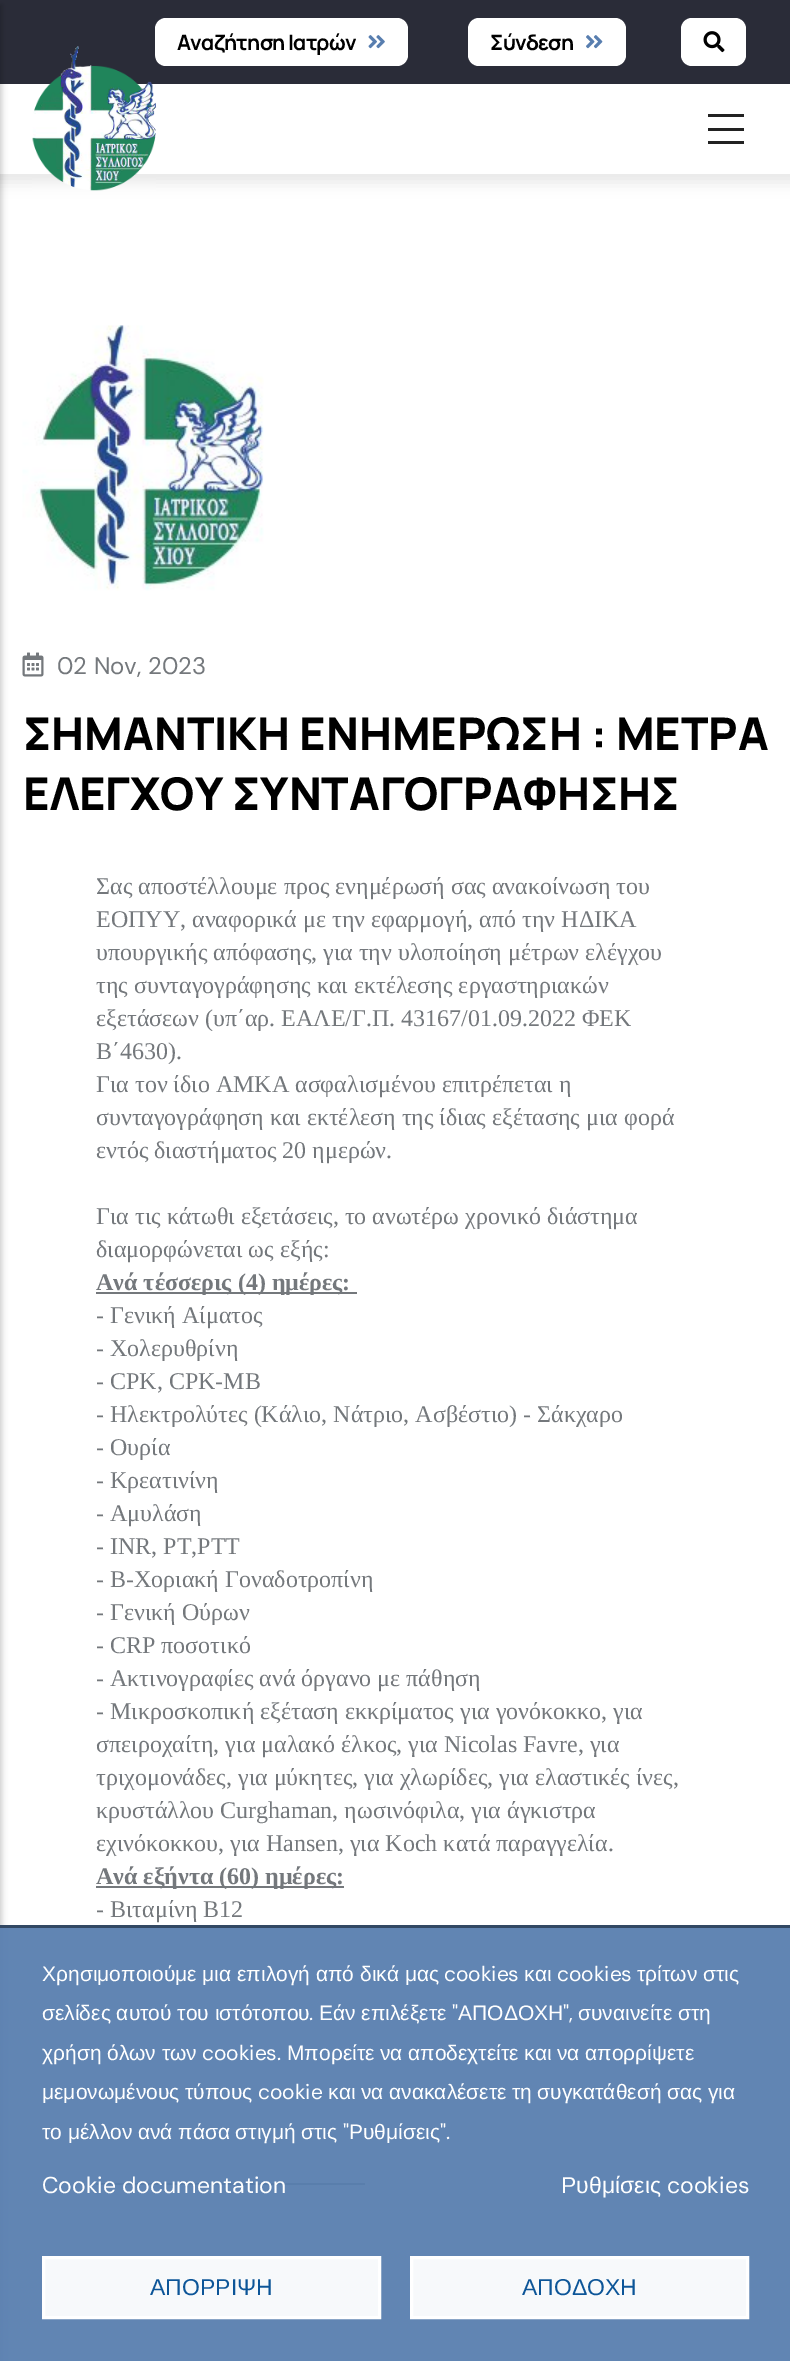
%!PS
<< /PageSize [790 2361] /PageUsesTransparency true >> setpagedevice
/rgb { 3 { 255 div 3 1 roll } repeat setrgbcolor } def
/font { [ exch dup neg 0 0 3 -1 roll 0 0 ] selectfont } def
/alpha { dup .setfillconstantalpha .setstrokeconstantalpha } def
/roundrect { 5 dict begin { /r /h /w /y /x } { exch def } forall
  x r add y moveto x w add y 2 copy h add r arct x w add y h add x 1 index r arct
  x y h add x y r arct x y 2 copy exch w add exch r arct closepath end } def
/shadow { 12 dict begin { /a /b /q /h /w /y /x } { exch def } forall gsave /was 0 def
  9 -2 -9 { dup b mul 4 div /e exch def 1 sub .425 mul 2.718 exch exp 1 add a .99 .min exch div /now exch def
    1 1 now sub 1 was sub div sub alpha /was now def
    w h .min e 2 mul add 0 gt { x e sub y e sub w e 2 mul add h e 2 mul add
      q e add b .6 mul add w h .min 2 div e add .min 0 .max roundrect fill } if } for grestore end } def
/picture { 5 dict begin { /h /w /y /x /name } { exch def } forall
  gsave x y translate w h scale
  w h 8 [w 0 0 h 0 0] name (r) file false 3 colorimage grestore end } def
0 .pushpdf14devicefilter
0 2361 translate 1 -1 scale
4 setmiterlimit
255 255 255 rgb
0 0 790 2361 rectfill
0 0 0 rgb
-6 -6 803 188 0 7.5 0.1 shadow
[
  [0 84 790 90 255 255 255]
  [0 174 790 2 235 235 235]
  [0 0 790 84 42 44 56]
] { aload pop rgb rectfill } forall
0 0 0 rgb
-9 5 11 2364 0 3 0.2 shadow
[
  [708 114 36 3 34 34 34]
  [708 128 36 3 34 34 34]
  [708 141 36 3 34 34 34]
] { aload pop rgb rectfill } forall
255 255 255 rgb
155 18 253 48 11 roundrect fill
(img/1.rgb) 32 46 124 145 picture
(img/2.rgb) 368 35 17 14 picture
468 18 158 48 11 roundrect fill
(img/3.rgb) 586 35 17 14 picture
681 18 65 48 11 roundrect fill
(img/4.rgb) 703 31 22 22 picture
(img/5.rgb) 22 325 242 266 picture
(img/6.rgb) 22 652 22 25 picture
[
  [96 1292 261 2 116 120 124]
  [96 1886 248 2 116 120 124]
  [96 2183 269 2 116 120 124]
] { aload pop rgb rectfill } forall
0.95 alpha
[
  [0 1928 790 433 88 126 175]
] { aload pop rgb rectfill } forall
1 alpha
[
  [0 1925 790 3 50 72 99]
] { aload pop rgb rectfill } forall
0.95 alpha
255 255 255 rgb
43.5 2257.5 moveto 379.5 2257.5 lineto 379.5 2317.5 lineto 43.5 2317.5 lineto closepath fill
1 alpha
3 setlinewidth
43.5 2257.5 moveto 379.5 2257.5 lineto 379.5 2317.5 lineto 43.5 2317.5 lineto closepath stroke
0.95 alpha
411.5 2257.5 moveto 747.5 2257.5 lineto 747.5 2317.5 lineto 411.5 2317.5 lineto closepath fill
1 alpha
411.5 2257.5 moveto 747.5 2257.5 lineto 747.5 2317.5 lineto 411.5 2317.5 lineto closepath stroke
/Manrope-Bold 21 font
0 0 0 rgb
177 50 moveto -0.75 0 (Αναζήτηση Ιατρών) ashow
490 50 moveto -0.75 0 (Σύνδεση) ashow
/DMSans-Regular 24 font
116 120 124 rgb
57 674 moveto (02 Nov, 2023) show
/Manrope-ExtraBold 45 font
0 0 0 rgb
23 750 moveto (ΣΗΜΑΝΤΙΚΗ ΕΝΗΜΕΡΩΣΗ : ΜΕΤΡΑ) show
23 810 moveto (ΕΛΕΓΧΟΥ ΣΥΝΤΑΓΟΓΡΑΦΗΣΗΣ) show
/LiberationSerif-Regular 24 font
116 120 124 rgb
[
  [(Σας αποστέλλουμε προς ενημέρωσή σας ανακοίνωση του) 96 894]
  [(ΕΟΠΥΥ, αναφορικά με την εφαρμογή, από την ΗΔΙΚΑ) 96 927]
  [(υπουργικής απόφασης, για την υλοποίηση μέτρων ελέγχου) 96 960]
  [(της συνταγογράφησης και εκτέλεσης εργαστηριακών) 96 993]
  [(εξετάσεων \(υπ΄αρ. ΕΑΛΕ/Γ.Π. 43167/01.09.2022 ΦΕΚ) 96 1026]
  [(Β΄4630\).) 96 1059]
  [(Για τoν ίδιο ΑΜΚΑ ασφαλισμένου επιτρέπεται η) 96 1092]
  [(συνταγογράφηση και εκτέλεση της ίδιας εξέτασης μια φορά) 96 1125]
  [(εντός διαστήματος 20 ημερών.) 96 1158]
  [(Για τις κάτωθι εξετάσεις, το ανωτέρω χρονικό διάστημα) 96 1224]
  [(διαμορφώνεται ως εξής:) 96 1257]
] { aload pop moveto show } forall
/LiberationSerif-Bold 24 font
96 1290 moveto (Ανά τέσσερις \(4\) ημέρες:) show
/LiberationSerif-Regular 24 font
[
  [(- Γενική Αίματος) 96 1323]
  [(- Χολερυθρίνη) 96 1356]
  [(- CPK, CPK-MB) 96 1389]
  [(- Ηλεκτρολύτες \(Κάλιο, Νάτριο, Ασβέστιο\) - Σάκχαρο) 96 1422]
  [(- Ουρία) 96 1455]
  [(- Κρεατινίνη) 96 1488]
  [(- Αμυλάση) 96 1521]
  [(- ΙNR, PT,PTT) 96 1554]
  [(- Β-Χοριακή Γοναδοτροπίνη) 96 1587]
  [(- Γενική Ούρων) 96 1620]
  [(- CRP ποσοτικό) 96 1653]
  [(- Ακτινογραφίες ανά όργανο με πάθηση) 96 1686]
  [(- Μικροσκοπική εξέταση εκκρίματος για γονόκοκκο, για) 96 1719]
  [(σπειροχαίτη, για μαλακό έλκος, για Nicolas Favre, για) 96 1752]
  [(τριχομονάδες, για μύκητες, για χλωρίδες, για ελαστικές ίνες,) 96 1785]
  [(κρυστάλλου Curghaman, ηωσινόφιλα, για άγκιστρα) 96 1818]
  [(εχινόκοκκου, για Hansen, για Koch κατά παραγγελία.) 96 1851]
] { aload pop moveto show } forall
/LiberationSerif-Bold 24 font
96 1884 moveto (Ανά εξήντα \(60\) ημέρες:) show
/LiberationSerif-Regular 24 font
96 1917 moveto (- Βιταμίνη Β12) show
/LiberationSans-Regular 21 font
255 255 255 rgb
42 1981 moveto (Χρησιμοποιούμε μια επιλογή από δικά μας) show
/DMSans-Regular 21 font
444 1981 moveto (cookies) show
/LiberationSans-Regular 21 font
524 1981 moveto (και) show
/DMSans-Regular 21 font
557 1981 moveto (cookies) show
/LiberationSans-Regular 21 font
637 1981 moveto (τρίτων στις) show
42 2020 moveto (σελίδες αυτού του ιστότοπου) show
/DMSans-Regular 21 font
309 2020 moveto (.) show
/LiberationSans-Regular 21 font
319 2020 moveto (Εάν επιλέξετε) show
/DMSans-Regular 21 font
452 2020 moveto (") show
/LiberationSans-Regular 21 font
458 2020 moveto (ΑΠΟΔΟΧΗ) show
/DMSans-Regular 21 font
563 2020 moveto (",) show
/LiberationSans-Regular 21 font
578 2020 moveto (συναινείτε στη) show
42 2060 moveto -0.25 0 32 (χρήση όλων των) widthshow
/DMSans-Regular 21 font
202 2060 moveto (cookies.) show
/LiberationSans-Regular 21 font
287 2060 moveto -0.25 0 32 (Μπορείτε να αποδεχτείτε και να απορρίψετε) widthshow
42 2099 moveto -0.25 0 32 (μεμονωμένους τύπους) widthshow
/DMSans-Regular 21 font
258 2099 moveto (cookie) show
/LiberationSans-Regular 21 font
328 2099 moveto -0.25 0 32 (και να ανακαλέσετε τη συγκατάθεσή σας για) widthshow
42 2139 moveto -0.25 0 32 (το μέλλον ανά πάσα στιγμή στις) widthshow
/DMSans-Regular 21 font
343 2139 moveto (") show
/LiberationSans-Regular 21 font
349 2139 moveto (Ρυθμίσεις) show
/DMSans-Regular 21 font
440 2139 moveto (".) show
/DMSans-Regular 23 font
42 2193 moveto (Cookie documentation) show
/LiberationSans-Regular 23 font
561 2193 moveto (Ρυθμίσεις) show
/DMSans-Regular 23 font
667 2193 moveto (cookies) show
/LiberationSans-Regular 23 font
12 85 152 rgb
150 2295 moveto (ΑΠΟΡΡΙΨΗ) show
522 2295 moveto (ΑΠΟΔΟΧΗ) show
.poppdf14devicefilter showpage
